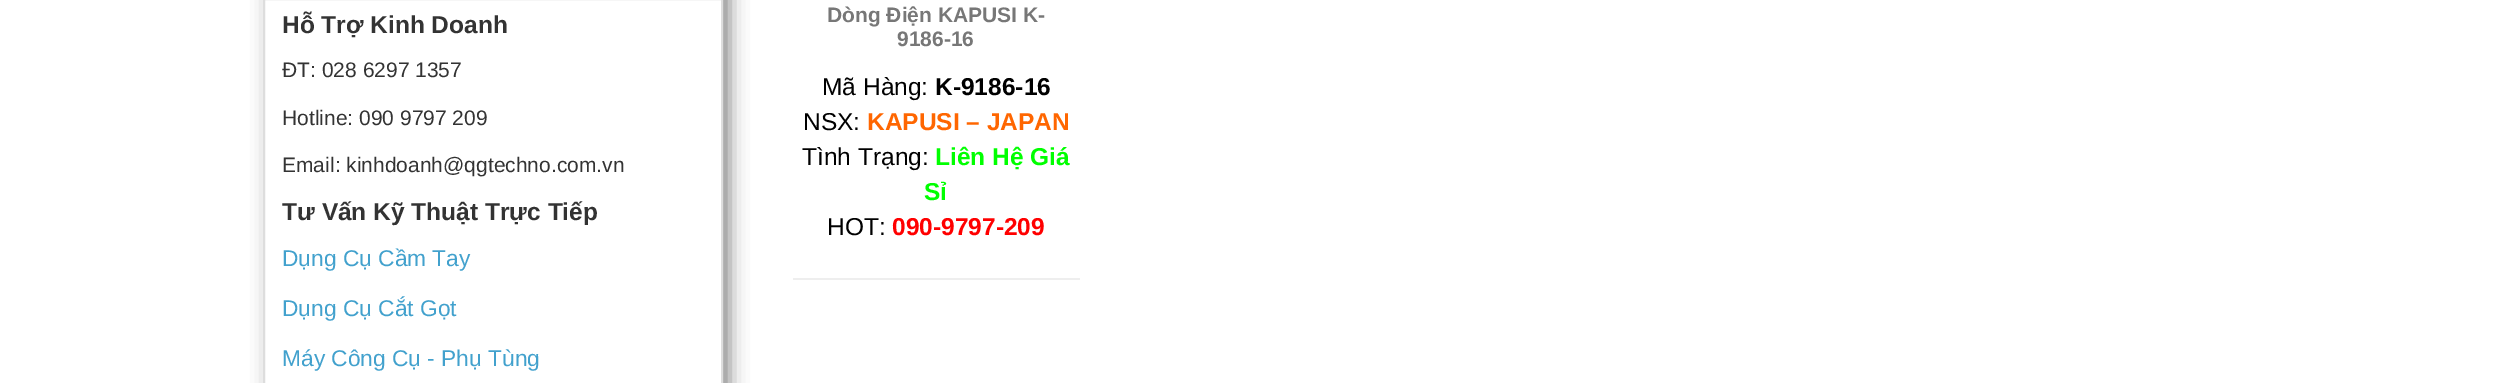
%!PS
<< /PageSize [2520 383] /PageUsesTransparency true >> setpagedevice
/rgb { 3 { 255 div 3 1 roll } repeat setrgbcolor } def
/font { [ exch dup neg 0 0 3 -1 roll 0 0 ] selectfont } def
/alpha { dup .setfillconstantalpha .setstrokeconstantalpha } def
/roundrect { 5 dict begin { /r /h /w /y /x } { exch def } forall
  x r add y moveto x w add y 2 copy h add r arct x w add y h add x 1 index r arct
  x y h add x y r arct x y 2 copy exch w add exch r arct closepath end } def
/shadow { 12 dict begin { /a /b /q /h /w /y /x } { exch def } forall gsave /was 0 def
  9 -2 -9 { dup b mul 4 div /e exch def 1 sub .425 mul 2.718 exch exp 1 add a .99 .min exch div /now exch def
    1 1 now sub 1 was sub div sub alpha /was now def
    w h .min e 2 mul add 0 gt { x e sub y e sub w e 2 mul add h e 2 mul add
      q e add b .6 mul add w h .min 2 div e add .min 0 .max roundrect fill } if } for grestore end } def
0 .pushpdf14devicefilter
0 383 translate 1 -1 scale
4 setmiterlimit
255 255 255 rgb
0 0 2520 383 rectfill
gsave
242 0 moveto 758 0 lineto 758 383 lineto 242 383 lineto closepath 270 -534 moveto 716 -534 lineto 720 -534 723 -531 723 -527 curveto 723 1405 lineto 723 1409 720 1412 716 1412 curveto 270 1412 lineto 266 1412 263 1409 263 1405 curveto 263 -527 lineto 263 -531 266 -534 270 -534 curveto closepath eoclip newpath
136 136 136 rgb
270 -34 460 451 7 9 1 shadow
grestore
221 221 221 rgb
2 setlinewidth
264 -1 458 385 rectstroke
238 238 238 rgb
793 278 287 2 rectfill
/LiberationSans-Bold 24.5 font
51 51 51 rgb
282 33 moveto (Hỗ Trợ Kinh Doanh) show
/LiberationSans-Regular 21 font
[
  [(ĐT: 028 6297 1357) 282 77]
  [(Hotline: 090 9797 209) 282 125]
  [(Email: kinhdoanh@qgtechno.com.vn) 282 172]
] { aload pop moveto show } forall
/LiberationSans-Bold 24.5 font
282 220 moveto (Tư Vấn Kỹ Thuật Trực Tiếp) show
/LiberationSans-Regular 22.75 font
66 161 205 rgb
[
  [(Dụng Cụ Cầm Tay) 282 266]
  [(Dụng Cụ Cắt Gọt) 282 316]
  [(Máy Công Cụ - Phụ Tùng) 282 366]
] { aload pop moveto show } forall
/LiberationSans-Bold 21 font
119 119 119 rgb
827 22 moveto (Dòng Điện KAPUSI K-) show
897 46 moveto (9186-16) show
/LiberationSans-Regular 24.5 font
0 0 0 rgb
822 95 moveto (Mã Hàng:) show
/LiberationSans-Bold 24.5 font
935 95 moveto (K-9186-16) show
/LiberationSans-Regular 24.5 font
803 130 moveto (NSX:) show
/LiberationSans-Bold 24.5 font
255 102 0 rgb
867 130 moveto (KAPUSI – JAPAN) show
/LiberationSans-Regular 24.5 font
0 0 0 rgb
802 165 moveto (Tình Trạng:) show
/LiberationSans-Bold 24.5 font
0 255 0 rgb
935 165 moveto (Liên Hệ Giá) show
924 200 moveto (Sỉ) show
/LiberationSans-Regular 24.5 font
0 0 0 rgb
827 235 moveto (HOT:) show
/LiberationSans-Bold 24.5 font
255 0 0 rgb
892 235 moveto (090-9797-209) show
.poppdf14devicefilter showpage
